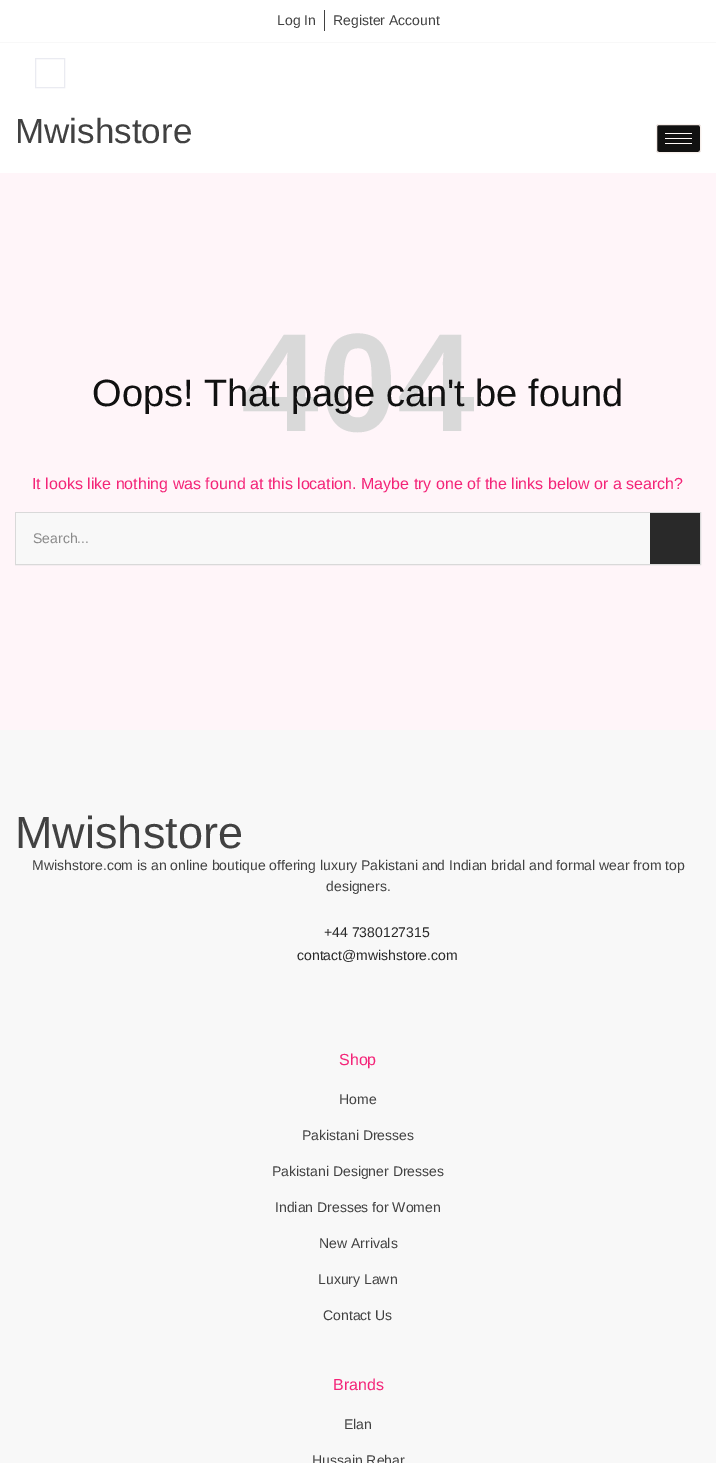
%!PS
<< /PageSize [716 1463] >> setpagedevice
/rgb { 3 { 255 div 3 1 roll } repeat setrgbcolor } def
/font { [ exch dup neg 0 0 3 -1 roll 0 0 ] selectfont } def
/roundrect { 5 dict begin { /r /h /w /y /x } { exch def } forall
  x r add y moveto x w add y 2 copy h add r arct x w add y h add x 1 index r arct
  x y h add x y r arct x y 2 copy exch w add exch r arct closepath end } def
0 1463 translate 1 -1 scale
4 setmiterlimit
255 255 255 rgb
0 0 716 1463 rectfill
248 248 248 rgb
0 42 716 1 rectfill
65 65 65 rgb
324 10 1 21 rectfill
234 235 241 rgb
35.5 58.5 29 29 rectstroke
17 17 17 rgb
656.5 124.5 44 28 2.5 roundrect gsave fill grestore
247 239 235 rgb
stroke
[
  [665 133 27 1 255 250 248]
  [665 138 27 1 255 250 248]
  [665 143 27 1 255 250 248]
  [0 173 716 557 255 245 249]
] { aload pop rgb rectfill } forall
217 217 217 rgb
15.5 512.5 685 52 rectstroke
[
  [16 513 634 51 248 248 248]
  [650 513 50 51 41 41 41]
  [0 730 716 733 248 248 248]
] { aload pop rgb rectfill } forall
/LiberationSans-Regular 14 font
65 65 65 rgb
277 25 moveto (Log In) show
333 25 moveto (Register Account) show
/LiberationSans-Regular 35 font
15 143 moveto (Mwishstore) show
/LiberationSans-Bold 140 font
217 217 217 rgb
241 431 moveto (404) show
/LiberationSans-Regular 38 font
17 17 17 rgb
92 406 moveto (Oops! That page can't be found) show
/LiberationSans-Regular 16 font
244 36 120 rgb
32 489 moveto (It looks like nothing was found at this location. Maybe try one of the links below or a search?) show
/LiberationSans-Regular 14 font
138 138 138 rgb
33 543 moveto (Search...) show
/LiberationSans-Regular 45 font
65 65 65 rgb
15 848 moveto (Mwishstore) show
/LiberationSans-Regular 14 font
32 870 moveto (Mwishstore.com is an online boutique offering luxury Pakistani and Indian bridal and formal wear from top) show
326 891 moveto (designers.) show
41 41 41 rgb
324 937 moveto (+44 7380127315) show
297 960 moveto (contact@mwishstore.com) show
/LiberationSans-Regular 16 font
244 36 120 rgb
339 1065 moveto (Shop) show
/LiberationSans-Regular 14 font
65 65 65 rgb
[
  [(Home) 339 1104]
  [(Pakistani Dresses) 302 1140]
  [(Pakistani Designer Dresses) 272 1176]
  [(Indian Dresses for Women) 275 1212]
  [(New Arrivals) 319 1248]
  [(Luxury Lawn) 318 1284]
  [(Contact Us) 323 1320]
] { aload pop moveto show } forall
/LiberationSans-Regular 16 font
244 36 120 rgb
333 1390 moveto (Brands) show
/LiberationSans-Regular 14 font
65 65 65 rgb
344 1429 moveto (Elan) show
312 1465 moveto (Hussain Rehar) show
showpage
